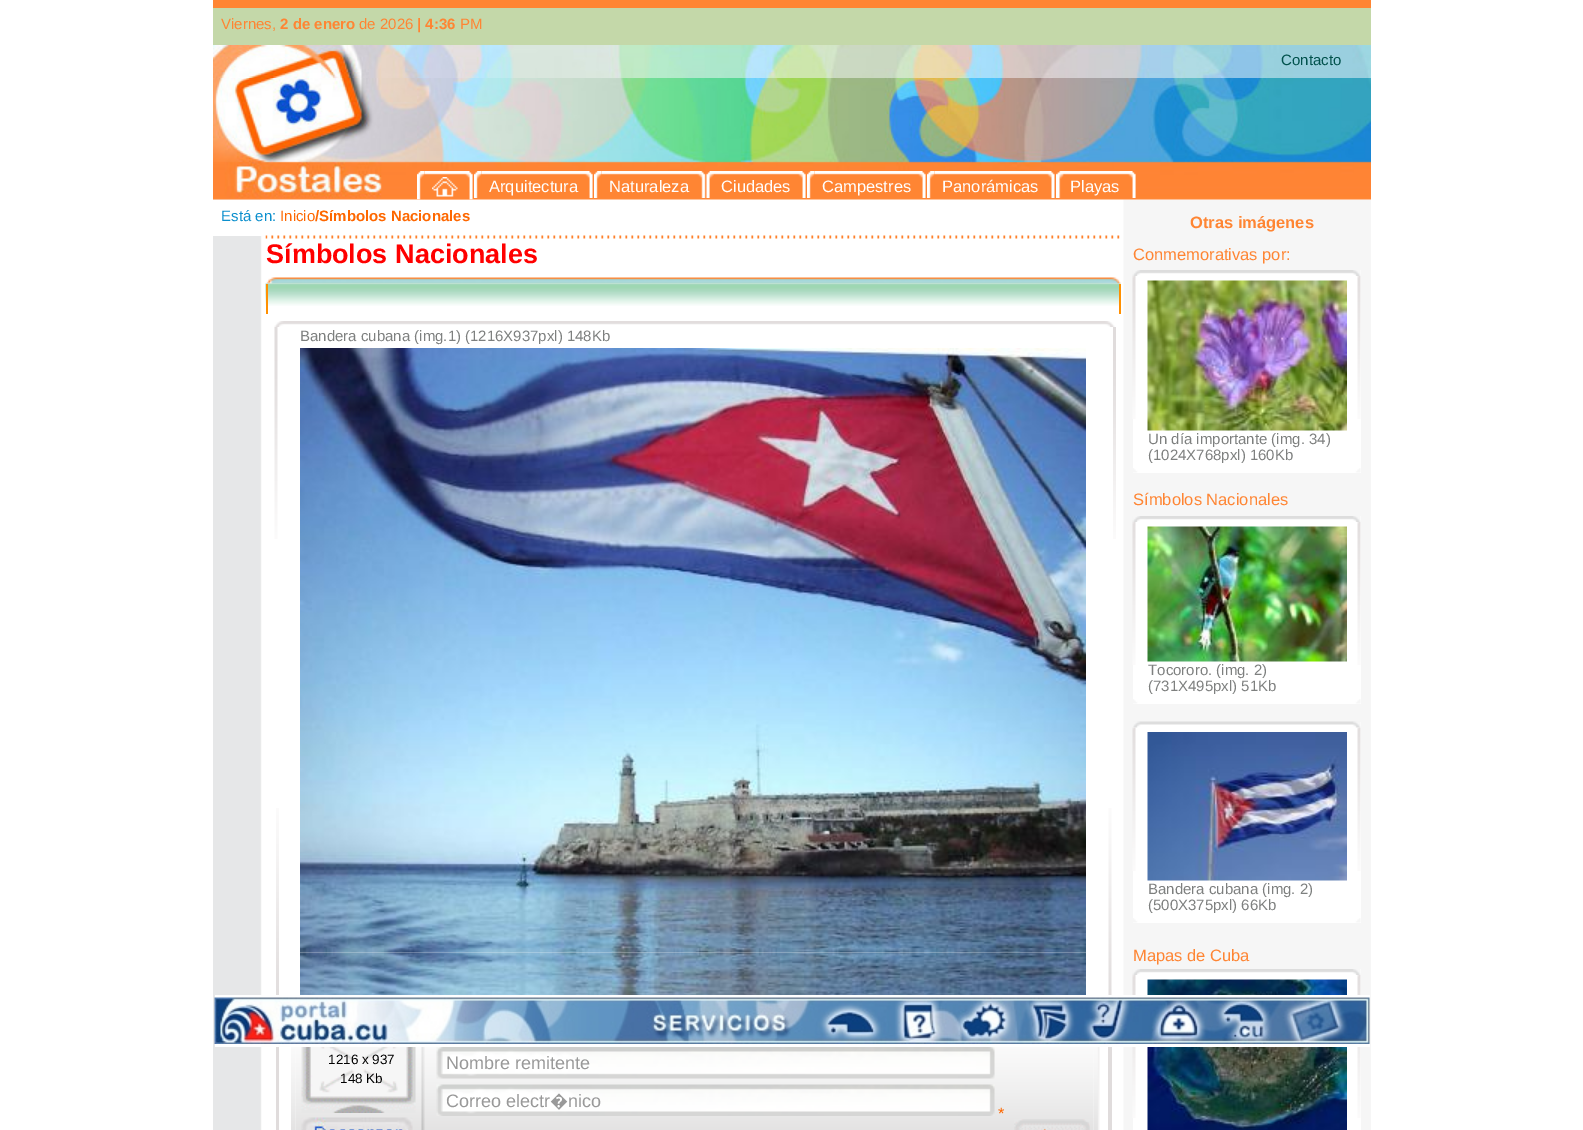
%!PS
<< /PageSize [1583 1130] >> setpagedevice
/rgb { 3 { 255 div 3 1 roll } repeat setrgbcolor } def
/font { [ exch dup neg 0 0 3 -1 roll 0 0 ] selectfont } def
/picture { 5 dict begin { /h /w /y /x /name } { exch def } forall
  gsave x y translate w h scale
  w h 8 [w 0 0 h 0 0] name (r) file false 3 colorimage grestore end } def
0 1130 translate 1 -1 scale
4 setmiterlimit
255 255 255 rgb
0 0 1583 1130 rectfill
255 133 51 rgb
213 0 1158 8 rectfill
196 216 169 rgb
213 8 1158 37 rectfill
(img/1.rgb) 213 45 1158 33 picture
(img/18.rgb) 213 199 1158 931 picture
(img/2.rgb) 213 78 204 122 picture
(img/3.rgb) 417 78 954 122 picture
(img/4.rgb) 417 171 8 29 picture
(img/5.rgb) 424 171 49 29 picture
(img/6.rgb) 432 177 26 20 picture
(img/7.rgb) 474 171 8 27 picture
(img/8.rgb) 481 171 112 27 picture
(img/9.rgb) 594 171 8 27 picture
(img/10.rgb) 601 171 105 27 picture
(img/11.rgb) 706 171 8 27 picture
(img/12.rgb) 714 171 92 27 picture
(img/13.rgb) 807 171 8 27 picture
(img/8.rgb) 814 171 112 27 picture
(img/14.rgb) 927 171 8 27 picture
(img/15.rgb) 934 171 121 27 picture
(img/16.rgb) 1056 171 8 27 picture
(img/17.rgb) 1063 171 73 27 picture
255 255 255 rgb
213 200 49 36 rectfill
(img/19.rgb) 265 235 855 4 picture
(img/20.rgb) 266 277 855 7 picture
(img/21.rgb) 265 283 856 23 picture
255 144 1 rgb
1119 284 2 30 rectfill
266 284 2 30 rectfill
(img/22.rgb) 274 321 841 6 picture
(img/23.rgb) 274 327 4 212 picture
(img/24.rgb) 300 348 786 605 picture
(img/25.rgb) 300 952 786 43 picture
(img/26.rgb) 1113 327 3 212 picture
(img/27.rgb) 276 808 3 187 picture
(img/28.rgb) 1108 808 4 187 picture
224 220 220 rgb
276 1047 3 83 rectfill
(img/29.rgb) 291 1047 5 83 picture
(img/30.rgb) 295 1047 799 83 picture
(img/31.rgb) 301 1047 115 66 picture
(img/32.rgb) 301 1117 112 13 picture
(img/33.rgb) 421 1047 4 83 picture
(img/34.rgb) 436 1047 559 32 picture
(img/35.rgb) 436 1084 559 32 picture
(img/36.rgb) 1014 1119 76 11 picture
(img/37.rgb) 1093 1047 7 83 picture
1108 1047 4 83 rectfill
255 255 255 rgb
1133 270 228 203 rectfill
(img/38.rgb) 1132 270 229 6 picture
(img/39.rgb) 1132 276 4 143 picture
(img/40.rgb) 1357 276 4 143 picture
(img/41.rgb) 1147 280 200 151 picture
(img/42.rgb) 1133 468 228 5 picture
1133 516 228 188 rectfill
(img/38.rgb) 1132 516 229 6 picture
(img/39.rgb) 1132 522 4 143 picture
(img/40.rgb) 1357 522 4 143 picture
(img/43.rgb) 1147 526 200 136 picture
(img/42.rgb) 1133 699 228 5 picture
1133 722 228 201 rectfill
(img/44.rgb) 1133 721 228 7 picture
(img/45.rgb) 1132 727 4 144 picture
(img/46.rgb) 1357 727 4 144 picture
(img/47.rgb) 1147 732 200 149 picture
(img/42.rgb) 1133 918 228 5 picture
1133 969 228 161 rectfill
(img/38.rgb) 1132 969 229 6 picture
(img/39.rgb) 1132 975 4 143 picture
(img/48.rgb) 1147 979 200 151 picture
(img/40.rgb) 1357 975 4 143 picture
215 995 1155 3 rectfill
(img/49.rgb) 214 997 1156 47 picture
215 1044 1155 3 rectfill
/LiberationSans-Regular 15 font
255 133 51 rgb
221 29 moveto (Viernes,) show
/LiberationSans-Bold 15 font
280 29 moveto (2 de enero) show
/LiberationSans-Regular 15 font
359 29 moveto (de 2026) show
/LiberationSans-Bold 15 font
417 29 moveto (| 4:36) show
/LiberationSans-Regular 15 font
460 29 moveto (PM) show
1 82 77 rgb
1281 65 moveto (Contacto) show
/LiberationSans-Regular 16.5 font
255 255 255 rgb
[
  [(Arquitectura) 489 192]
  [(Naturaleza) 609 192]
  [(Ciudades) 721 192]
  [(Campestres) 822 192]
  [(Panorámicas) 942 192]
  [(Playas) 1070 192]
] { aload pop moveto show } forall
/LiberationSans-Regular 15 font
11 143 205 rgb
221 221 moveto (Está en:) show
254 103 0 rgb
280 221 moveto (Inicio) show
/LiberationSans-Bold 15 font
315 221 moveto (/Símbolos Nacionales) show
/LiberationSans-Bold 27 font
255 0 0 rgb
266 263 moveto (Símbolos Nacionales) show
/LiberationSans-Regular 15 font
126 128 127 rgb
300 341 moveto (Bandera cubana \(img.1\) \(1216X937pxl\) 148Kb) show
/LiberationSans-Regular 13.5 font
0 0 0 rgb
328 1064 moveto (1216 x 937) show
340 1083 moveto (148 Kb) show
/LiberationSans-Regular 18 font
153 153 153 rgb
446 1069 moveto (Nombre remitente) show
446 1107 moveto (Correo electr) show
/NotoSans-Regular 18 font
550 1107 moveto (�) show
/LiberationSans-Regular 18 font
568 1107 moveto (nico) show
/LiberationSans-Regular 16.5 font
254 103 0 rgb
998 1119 moveto (*) show
/LiberationSans-Bold 16.5 font
255 133 51 rgb
1190 228 moveto (Otras imágenes) show
/LiberationSans-Regular 16.5 font
1133 260 moveto (Conmemorativas por:) show
/LiberationSans-Regular 15 font
126 128 127 rgb
1148 444 moveto (Un día importante \(img. 34\)) show
1148 460 moveto (\(1024X768pxl\) 160Kb) show
/LiberationSans-Regular 16.5 font
255 133 51 rgb
1133 505 moveto (Símbolos Nacionales) show
/LiberationSans-Regular 15 font
126 128 127 rgb
[
  [(Tocororo. \(img. 2\)) 1148 675]
  [(\(731X495pxl\) 51Kb) 1148 691]
  [(Bandera cubana \(img. 2\)) 1148 894]
  [(\(500X375pxl\) 66Kb) 1148 910]
] { aload pop moveto show } forall
/LiberationSans-Regular 16.5 font
255 133 51 rgb
1133 961 moveto (Mapas de Cuba) show
showpage
